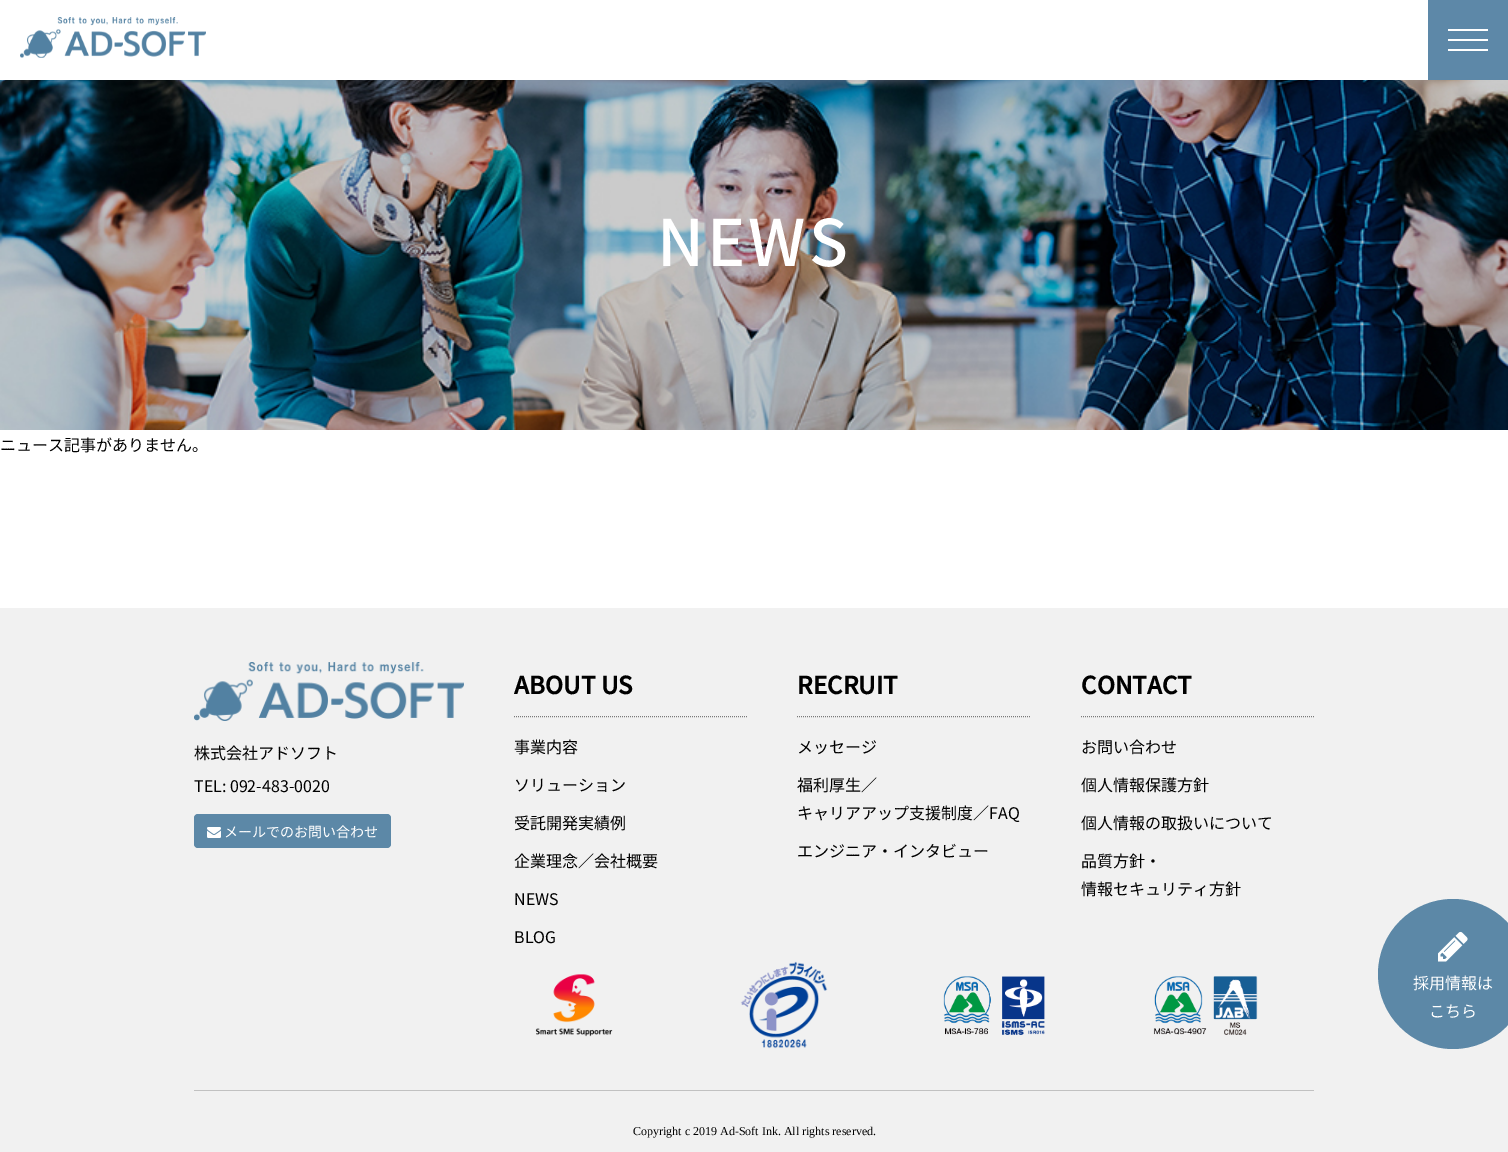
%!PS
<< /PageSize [1508 1152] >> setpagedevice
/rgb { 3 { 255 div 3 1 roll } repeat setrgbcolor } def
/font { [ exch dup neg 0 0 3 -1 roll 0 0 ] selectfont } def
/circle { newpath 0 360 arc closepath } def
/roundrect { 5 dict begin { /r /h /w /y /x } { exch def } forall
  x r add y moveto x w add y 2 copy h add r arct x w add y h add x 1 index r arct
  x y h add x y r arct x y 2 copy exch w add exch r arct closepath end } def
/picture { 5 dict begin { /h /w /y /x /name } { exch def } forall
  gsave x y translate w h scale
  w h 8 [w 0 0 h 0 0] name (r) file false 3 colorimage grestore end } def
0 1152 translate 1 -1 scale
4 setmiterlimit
255 255 255 rgb
0 0 1508 1152 rectfill
(img/1.rgb) 0 80 1508 350 picture
(img/2.rgb) 20 17 186 41 picture
[
  [1428 0 80 80 93 136 168]
  [1448 39 40 2 255 255 255]
  [1448 29 40 2 255 255 255]
  [1448 49 40 2 255 255 255]
  [0 608 1508 544 241 241 241]
] { aload pop rgb rectfill } forall
92 136 167 rgb
1453 974 75 circle fill
(img/3.rgb) 1438 931 30 31 picture
(img/4.rgb) 194 662 270 59 picture
194 814 197 34 4 roundrect fill
(img/5.rgb) 207 827 14 11 picture
121 121 121 rgb
[1 1] 0 setdash
514 716.5 moveto 747 716.5 lineto stroke
797 716.5 moveto 1031 716.5 lineto stroke
1081 716.5 moveto 1314 716.5 lineto stroke
(img/6.rgb) 535 974 78 63 picture
(img/7.rgb) 740 961 88 88 picture
(img/8.rgb) 943 976 102 59 picture
(img/9.rgb) 1153 976 105 59 picture
193 193 193 rgb
194 1090 1120 1 rectfill
/NotoSansJP-Regular 16 font
0 0 0 rgb
0 451 moveto (ニュース記事がありません。) show
/NotoSansJP-Medium 64 font
255 255 255 rgb
657 266 moveto 3 0 (NEWS) ashow
/NotoSansJP-Regular 16 font
1413 989 moveto (採用情報は) show
1429 1017 moveto (こちら) show
0 0 0 rgb
194 759 moveto (株式会社アドソフト) show
194 792 moveto (TEL: 092-483-0020) show
/NotoSansJP-Regular 14 font
255 255 255 rgb
224 837 moveto (メールでのお問い合わせ) show
/NotoSansJP-Bold 24 font
0 0 0 rgb
514 694 moveto (ABOUT US) show
/NotoSansJP-Regular 16 font
[
  [(事業内容) 514 753]
  [(ソリューション) 514 791]
  [(受託開発実績例) 514 829]
  [(企業理念／会社概要) 514 867]
  [(NEWS) 514 905]
  [(BLOG) 514 943]
] { aload pop moveto show } forall
/NotoSansJP-Bold 24 font
797 694 moveto (RECRUIT) show
/NotoSansJP-Regular 16 font
[
  [(メッセージ) 797 753]
  [(福利厚生／) 797 791]
  [(キャリアアップ支援制度／FAQ) 797 819]
  [(エンジニア・インタビュー) 797 857]
] { aload pop moveto show } forall
/NotoSansJP-Bold 24 font
1081 694 moveto (CONTACT) show
/NotoSansJP-Regular 16 font
[
  [(お問い合わせ) 1081 753]
  [(個人情報保護方針) 1081 791]
  [(個人情報の取扱いについて) 1081 829]
  [(品質方針・) 1081 867]
  [(情報セキュリティ方針) 1081 895]
] { aload pop moveto show } forall
/LiberationSerif-Regular 12 font
633 1135 moveto (Copyright c 2019 Ad-Soft Ink. All rights reserved.) show
showpage
